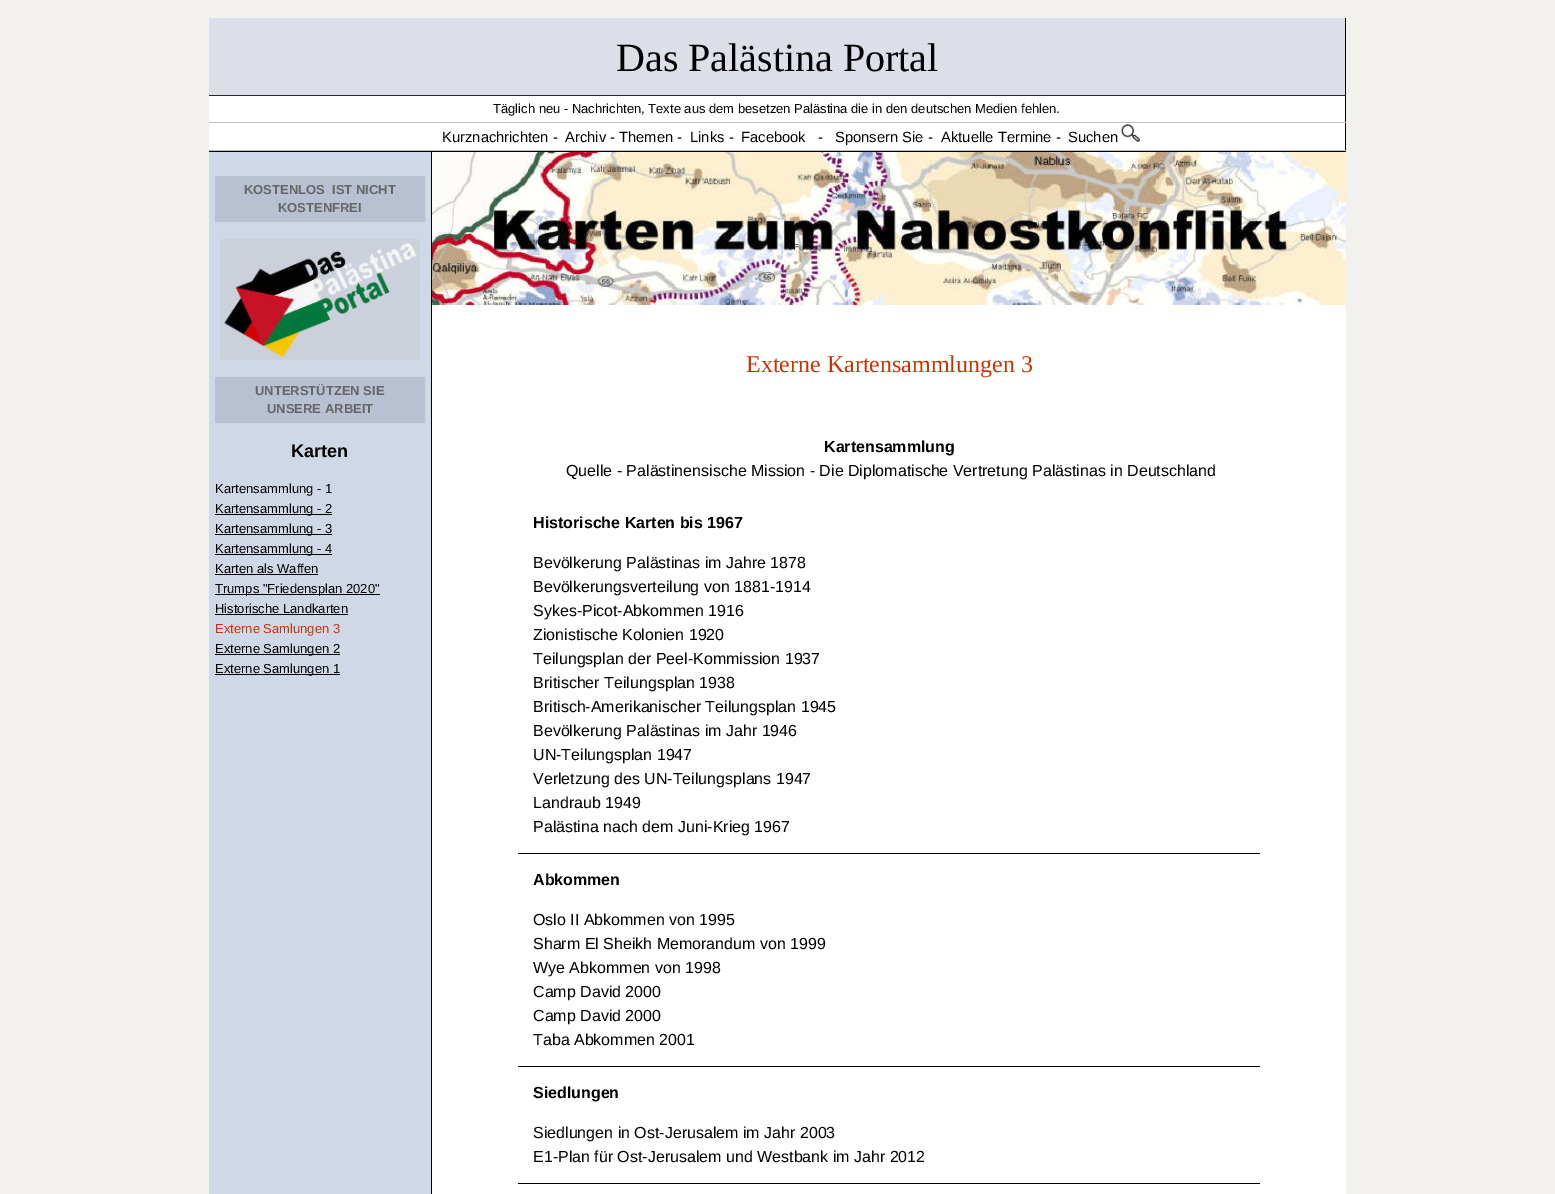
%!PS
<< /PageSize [1555 1194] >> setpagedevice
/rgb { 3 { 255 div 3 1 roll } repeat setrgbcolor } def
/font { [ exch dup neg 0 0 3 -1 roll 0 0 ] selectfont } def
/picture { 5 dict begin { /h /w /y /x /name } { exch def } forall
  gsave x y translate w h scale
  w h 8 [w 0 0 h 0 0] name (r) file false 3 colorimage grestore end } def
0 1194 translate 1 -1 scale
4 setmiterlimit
242 241 237 rgb
0 0 1555 1194 rectfill
[
  [1345 18 1 134 0 0 0]
  [209 151 1136 1 0 0 0]
  [209 96 1136 54 255 255 255]
  [209 18 1136 77 221 223 232]
  [209 95 1137 1 36 39 47]
  [209 122 1137 1 192 192 192]
  [209 150 1137 1 192 192 192]
] { aload pop rgb rectfill } forall
(img/1.rgb) 1121 124 19 18 picture
[
  [209 152 222 1042 207 216 231]
  [431 152 1 1042 0 0 0]
  [215 176 210 46 183 193 210]
] { aload pop rgb rectfill } forall
(img/2.rgb) 220 239 200 121 picture
[
  [215 377 210 46 183 193 210]
  [215 514 117 1 0 0 0]
  [215 534 117 1 0 0 0]
  [215 554 117 1 0 0 0]
  [215 574 103 1 0 0 0]
  [215 594 165 1 0 0 0]
  [215 614 133 1 0 0 0]
  [215 654 125 1 0 0 0]
  [215 674 125 1 0 0 0]
  [432 305 914 889 255 255 255]
] { aload pop rgb rectfill } forall
(img/3.rgb) 432 152 914 153 picture
[
  [518 853 742 1 0 0 0]
  [518 1066 742 1 0 0 0]
  [518 1183 742 1 0 0 0]
] { aload pop rgb rectfill } forall
/LiberationSerif-Regular 40 font
616 71 moveto (Das Palästina Portal) show
/LiberationSans-Regular 13 font
493 113 moveto (Täglich neu - Nachrichten, Texte aus dem besetzen Palästina die in den deutschen Medien fehlen.) show
/LiberationSans-Regular 14.75 font
[
  [(Kurznachrichten -) 442 142]
  [(Archiv - Themen -) 565 142]
  [(Links -) 690 142]
  [(Facebook) 741 142]
  [(-) 818 142]
  [(Sponsern Sie -) 835 142]
  [(Aktuelle Termine -) 941 142]
  [(Suchen) 1068 142]
] { aload pop moveto show } forall
/LiberationSans-Bold 13 font
102 102 102 rgb
[
  [(KOSTENLOS) 244 194]
  [(IST NICHT) 332 194]
  [(KOSTENFREI) 278 212]
  [(UNTERSTÜTZEN SIE) 255 395]
  [(UNSERE ARBEIT) 267 413]
] { aload pop moveto show } forall
/LiberationSans-Bold 18 font
0 0 0 rgb
291 457 moveto (Karten) show
/LiberationSans-Regular 13 font
[
  [(Kartensammlung - 1) 215 493]
  [(Kartensammlung - 2) 215 513]
  [(Kartensammlung - 3) 215 533]
  [(Kartensammlung - 4) 215 553]
  [(Karten als Waffen) 215 573]
  [(Trumps "Friedensplan 2020") 215 593]
  [(Historische Landkarten) 215 613]
] { aload pop moveto show } forall
204 51 0 rgb
215 633 moveto (Externe Samlungen 3) show
0 0 0 rgb
215 653 moveto (Externe Samlungen 2) show
215 673 moveto (Externe Samlungen 1) show
/LiberationSerif-Regular 24 font
204 51 0 rgb
746 372 moveto (Externe Kartensammlungen 3) show
/LiberationSans-Bold 16 font
0 0 0 rgb
824 452 moveto (Kartensammlung) show
/LiberationSans-Regular 16 font
566 476 moveto (Quelle - Palästinensische Mission - Die Diplomatische Vertretung Palästinas in Deutschland) show
/LiberationSans-Bold 16 font
533 528 moveto (Historische Karten bis 1967) show
/LiberationSans-Regular 16 font
[
  [(Bevölkerung Palästinas im Jahre 1878) 533 568]
  [(Bevölkerungsverteilung von 1881-1914) 533 592]
  [(Sykes-Picot-Abkommen 1916) 533 616]
  [(Zionistische Kolonien 1920) 533 640]
  [(Teilungsplan der Peel-Kommission 1937) 533 664]
  [(Britischer Teilungsplan 1938) 533 688]
  [(Britisch-Amerikanischer Teilungsplan 1945) 533 712]
  [(Bevölkerung Palästinas im Jahr 1946) 533 736]
  [(UN-Teilungsplan 1947) 533 760]
  [(Verletzung des UN-Teilungsplans 1947) 533 784]
  [(Landraub 1949) 533 808]
  [(Palästina nach dem Juni-Krieg 1967) 533 832]
] { aload pop moveto show } forall
/LiberationSans-Bold 16 font
533 885 moveto (Abkommen) show
/LiberationSans-Regular 16 font
[
  [(Oslo II Abkommen von 1995) 533 925]
  [(Sharm El Sheikh Memorandum von 1999) 533 949]
  [(Wye Abkommen von 1998) 533 973]
  [(Camp David 2000) 533 997]
  [(Camp David 2000) 533 1021]
  [(Taba Abkommen 2001) 533 1045]
] { aload pop moveto show } forall
/LiberationSans-Bold 16 font
533 1098 moveto (Siedlungen) show
/LiberationSans-Regular 16 font
533 1138 moveto (Siedlungen in Ost-Jerusalem im Jahr 2003) show
533 1162 moveto (E1-Plan für Ost-Jerusalem und Westbank im Jahr 2012) show
showpage
